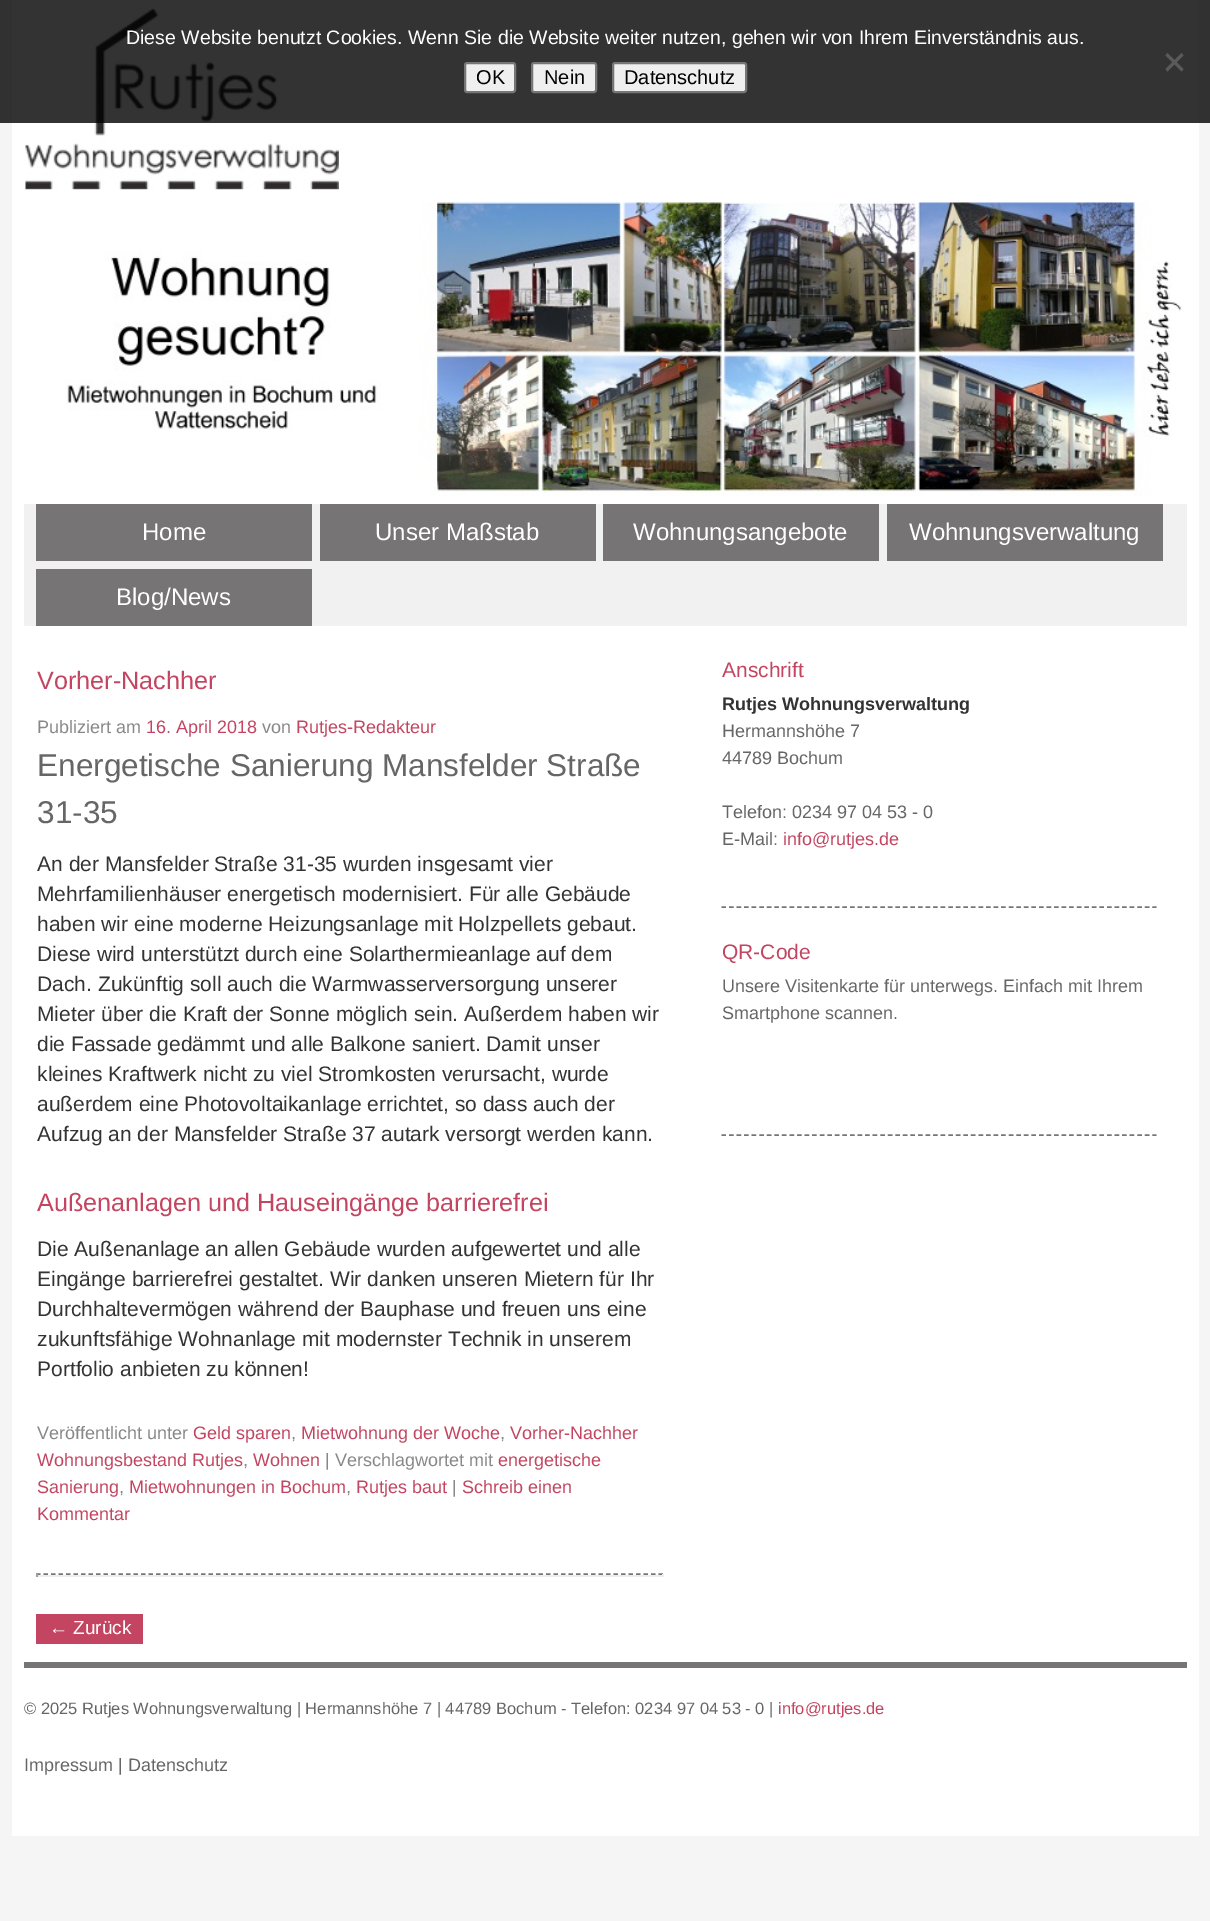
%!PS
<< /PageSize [1210 1921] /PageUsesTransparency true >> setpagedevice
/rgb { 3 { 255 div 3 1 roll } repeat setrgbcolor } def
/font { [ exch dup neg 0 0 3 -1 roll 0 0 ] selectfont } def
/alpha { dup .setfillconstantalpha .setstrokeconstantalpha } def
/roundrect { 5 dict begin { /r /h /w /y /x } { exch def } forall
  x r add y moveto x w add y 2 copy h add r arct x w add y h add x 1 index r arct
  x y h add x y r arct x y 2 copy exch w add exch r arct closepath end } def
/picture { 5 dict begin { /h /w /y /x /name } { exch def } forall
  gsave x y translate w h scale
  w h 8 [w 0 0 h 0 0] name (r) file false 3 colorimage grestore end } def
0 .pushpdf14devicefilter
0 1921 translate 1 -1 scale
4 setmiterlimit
245 245 245 rgb
0 0 1210 1921 rectfill
255 255 255 rgb
12 0 1187 1836 rectfill
(img/1.rgb) 25 8 314 182 picture
0.8 alpha
0 0 0 rgb
0 0 1210 123 rectfill
1 alpha
90 90 90 rgb
1181.5 53 moveto 1183.5 55.5 lineto 1167.5 71.5 lineto 1165.5 69 lineto closepath fill
1165.5 55.5 moveto 1167.5 53 lineto 1183.5 69 lineto 1181.5 71.5 lineto closepath fill
239 239 239 rgb
465 63 50 29 2 roundrect gsave fill grestore
118 118 118 rgb
2 setlinewidth
stroke
239 239 239 rgb
532 63 64 29 2 roundrect gsave fill grestore
118 118 118 rgb
stroke
239 239 239 rgb
613 63 133 29 2 roundrect gsave fill grestore
118 118 118 rgb
stroke
(img/2.rgb) 65 202 1117 295 picture
[
  [24 504 1163 122 241 241 241]
  [36 504 276 57 118 116 117]
  [320 504 276 57 118 116 117]
  [603 504 276 57 118 116 117]
  [887 504 276 57 118 116 117]
  [36 569 276 57 118 116 117]
] { aload pop rgb rectfill } forall
1.5 setlinewidth
[4.5 3] 0 setdash
36 1574 moveto 663 1574 lineto stroke
[
  [662 1574 2 3 238 238 238]
  [36 1575 627 2 238 238 238]
  [36 1574 2 3 159 159 159]
  [36 1614 107 30 195 69 97]
] { aload pop rgb rectfill } forall
118 116 117 rgb
[4.5 3.06] 0 setdash
721.5 907 moveto 1156.5 907 lineto stroke
721.5 1135 moveto 1156.5 1135 lineto stroke
24 1662 1163 6 rectfill
/LiberationSans-Regular 19.5 font
255 255 255 rgb
126 44 moveto (Diese Website benutzt Cookies. Wenn Sie die Website weiter nutzen, gehen wir von Ihrem Einverständnis aus.) show
/LiberationSans-Regular 20 font
0 0 0 rgb
[
  [(OK) 476 84]
  [(Nein) 544 84]
  [(Datenschutz) 624 84]
] { aload pop moveto show } forall
/LiberationSans-Regular 24 font
255 255 255 rgb
[
  [(Home) 142 540]
  [(Unser Maßstab) 375 540]
  [(Wohnungsangebote) 633 540]
  [(Wohnungsverwaltung) 909 540]
  [(Blog/News) 116 605]
] { aload pop moveto show } forall
/LiberationSans-Regular 25.2 font
195 69 97 rgb
37 689 moveto (Vorher-Nachher) show
/LiberationSans-Regular 18 font
136 136 136 rgb
37 733 moveto (Publiziert am) show
195 69 97 rgb
146 733 moveto (16. April 2018) show
136 136 136 rgb
262 733 moveto (von) show
195 69 97 rgb
296 733 moveto (Rutjes-Redakteur) show
/LiberationSans-Regular 31.5 font
102 102 102 rgb
37 776 moveto (Energetische Sanierung Mansfelder Straße) show
37 823 moveto (31-35) show
/LiberationSans-Regular 21 font
51 51 51 rgb
[
  [(An der Mansfelder Straße 31-35 wurden insgesamt vier) 37 871]
  [(Mehrfamilienhäuser energetisch modernisiert. Für alle Gebäude) 37 901]
  [(haben wir eine moderne Heizungsanlage mit Holzpellets gebaut.) 37 931]
  [(Diese wird unterstützt durch eine Solarthermieanlage auf dem) 37 961]
  [(Dach. Zukünftig soll auch die Warmwasserversorgung unserer) 37 991]
  [(Mieter über die Kraft der Sonne möglich sein. Außerdem haben wir) 37 1021]
  [(die Fassade gedämmt und alle Balkone saniert. Damit unser) 37 1051]
  [(kleines Kraftwerk nicht zu viel Stromkosten verursacht, wurde) 37 1081]
  [(außerdem eine Photovoltaikanlage errichtet, so dass auch der) 37 1111]
  [(Aufzug an der Mansfelder Straße 37 autark versorgt werden kann.) 37 1141]
] { aload pop moveto show } forall
/LiberationSans-Regular 25.2 font
195 69 97 rgb
37 1211 moveto (Außenanlagen und Hauseingänge barrierefrei) show
/LiberationSans-Regular 21 font
51 51 51 rgb
[
  [(Die Außenanlage an allen Gebäude wurden aufgewertet und alle) 37 1256]
  [(Eingänge barrierefrei gestaltet. Wir danken unseren Mietern für Ihr) 37 1286]
  [(Durchhaltevermögen während der Bauphase und freuen uns eine) 37 1316]
  [(zukunftsfähige Wohnanlage mit modernster Technik in unserem) 37 1346]
  [(Portfolio anbieten zu können!) 37 1376]
] { aload pop moveto show } forall
/LiberationSans-Regular 18 font
136 136 136 rgb
37 1439 moveto (Veröffentlicht unter) show
195 69 97 rgb
193 1439 moveto (Geld sparen) show
136 136 136 rgb
291 1439 moveto (,) show
195 69 97 rgb
301 1439 moveto (Mietwohnung der Woche) show
136 136 136 rgb
500 1439 moveto (,) show
195 69 97 rgb
510 1439 moveto (Vorher-Nachher) show
37 1466 moveto (Wohnungsbestand Rutjes) show
136 136 136 rgb
243 1466 moveto (,) show
195 69 97 rgb
253 1466 moveto (Wohnen) show
136 136 136 rgb
325 1466 moveto (| Verschlagwortet mit) show
195 69 97 rgb
498 1466 moveto (energetische) show
37 1493 moveto (Sanierung) show
136 136 136 rgb
119 1493 moveto (,) show
195 69 97 rgb
129 1493 moveto (Mietwohnungen in Bochum) show
136 136 136 rgb
346 1493 moveto (,) show
195 69 97 rgb
356 1493 moveto (Rutjes baut) show
136 136 136 rgb
452 1493 moveto (|) show
195 69 97 rgb
462 1493 moveto (Schreib einen) show
37 1520 moveto (Kommentar) show
/LiberationSans-Regular 19 font
255 255 255 rgb
49 1634 moveto (← Zurück) show
/LiberationSans-Regular 21 font
195 69 97 rgb
722 677 moveto (Anschrift) show
/LiberationSans-Bold 18 font
51 51 51 rgb
722 710 moveto (Rutjes Wohnungsverwaltung) show
/LiberationSans-Regular 18 font
102 102 102 rgb
[
  [(Hermannshöhe 7) 722 737]
  [(44789 Bochum) 722 764]
  [(Telefon: 0234 97 04 53 - 0) 722 818]
  [(E-Mail:) 722 845]
] { aload pop moveto show } forall
195 69 97 rgb
783 845 moveto (info@rutjes.de) show
/LiberationSans-Regular 21 font
722 959 moveto (QR-Code) show
/LiberationSans-Regular 18 font
102 102 102 rgb
722 992 moveto (Unsere Visitenkarte für unterwegs. Einfach mit Ihrem) show
722 1019 moveto (Smartphone scannen.) show
/LiberationSans-Regular 16.5 font
24 1714 moveto (© 2025 Rutjes Wohnungsverwaltung | Hermannshöhe 7 | 44789 Bochum - Telefon: 0234 97 04 53 - 0 |) show
195 69 97 rgb
778 1714 moveto (info@rutjes.de) show
/LiberationSans-Regular 18 font
102 102 102 rgb
24 1771 moveto (Impressum | Datenschutz) show
.poppdf14devicefilter showpage
